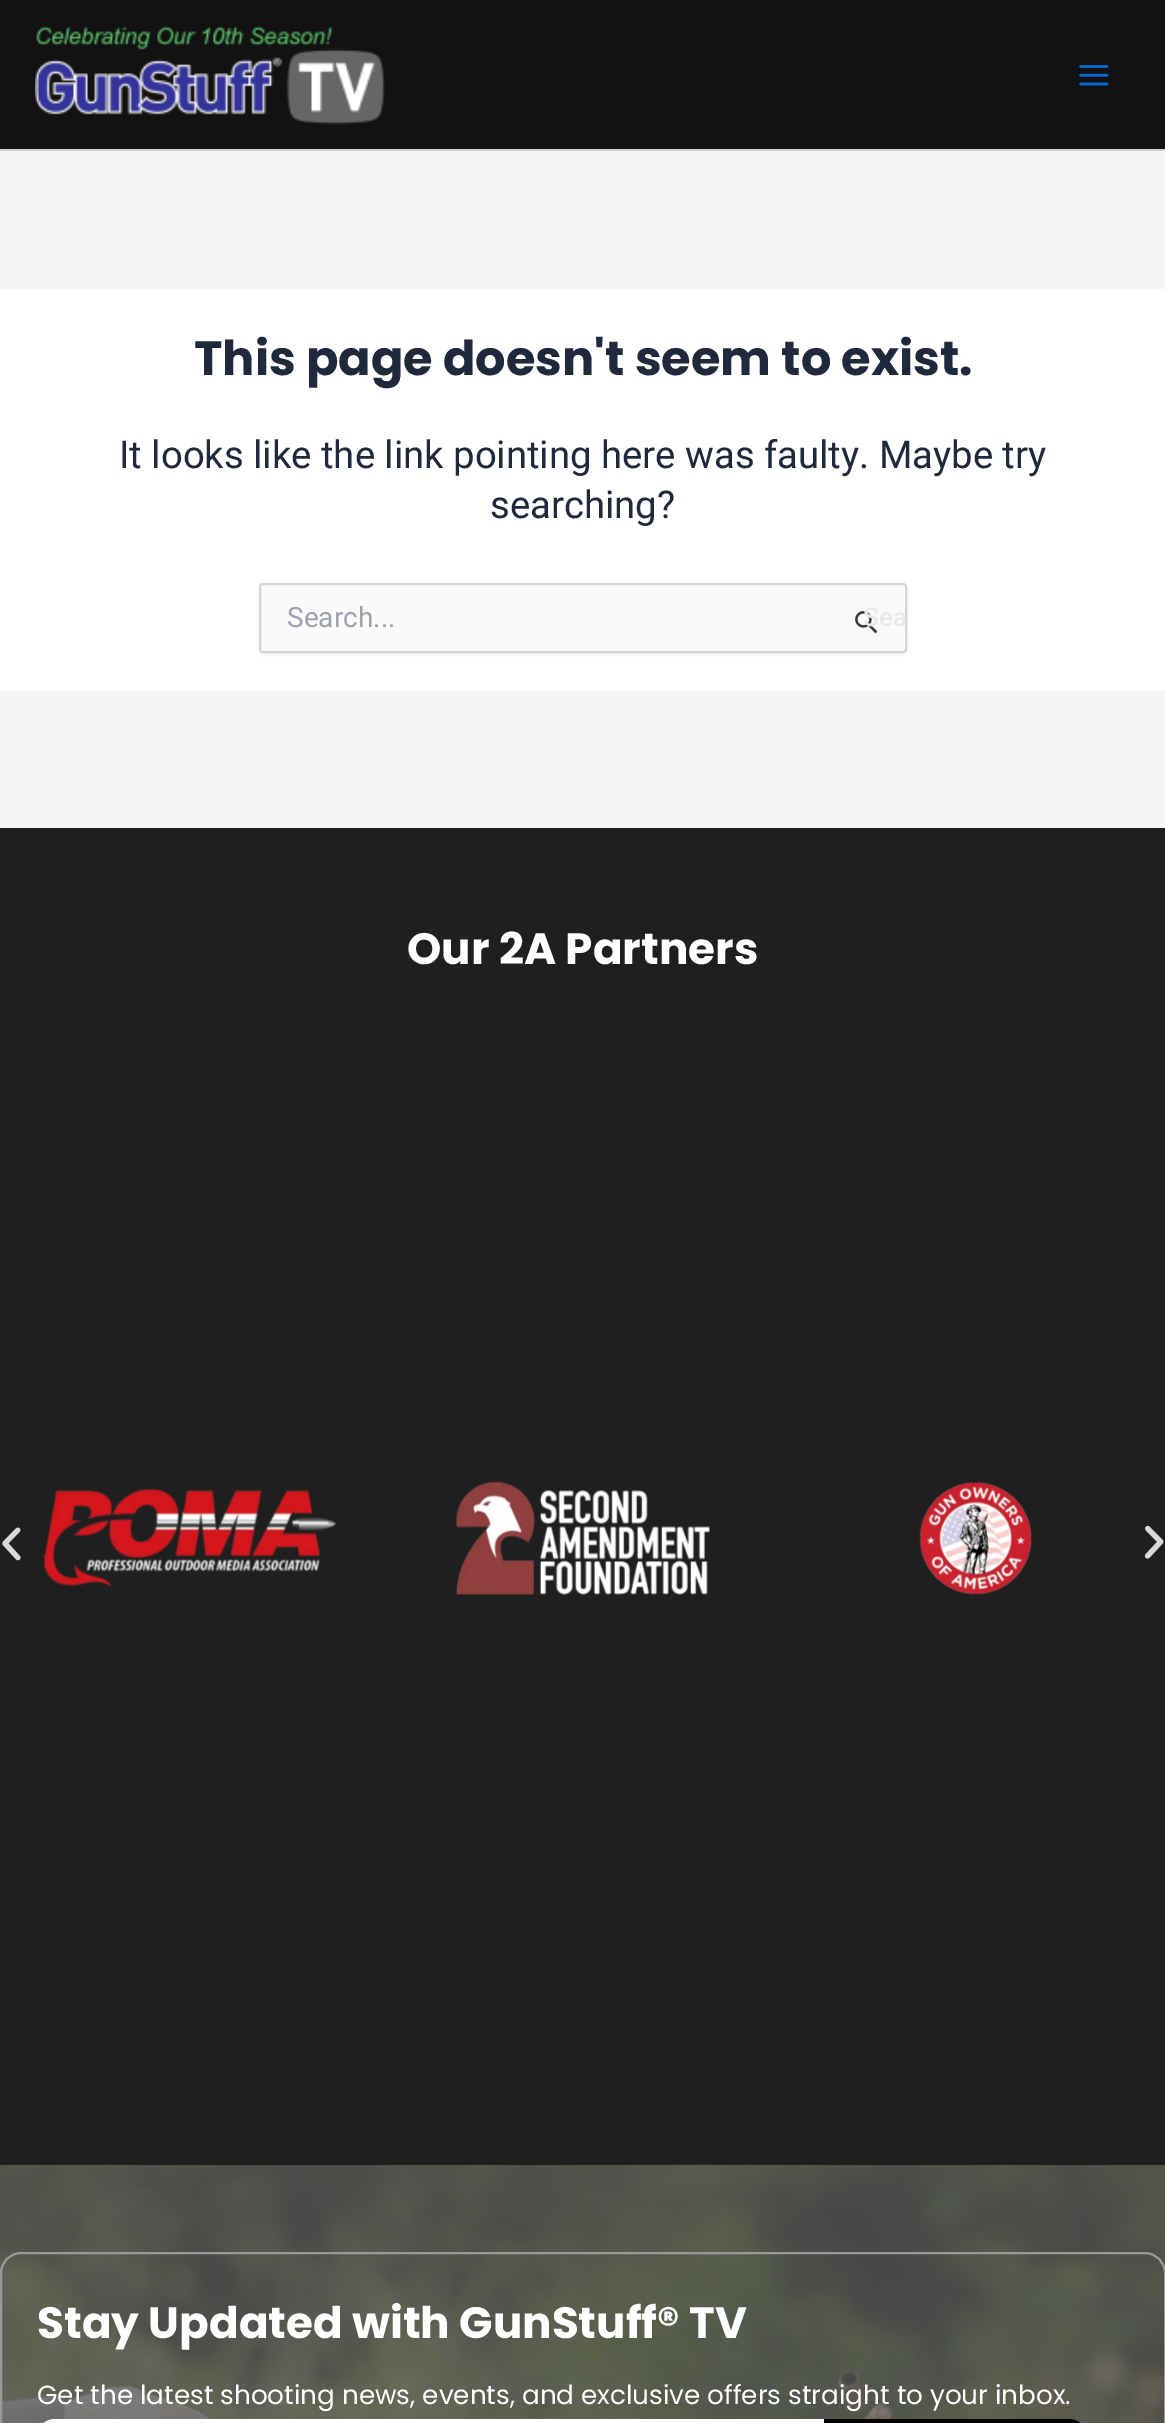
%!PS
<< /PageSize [1165 2423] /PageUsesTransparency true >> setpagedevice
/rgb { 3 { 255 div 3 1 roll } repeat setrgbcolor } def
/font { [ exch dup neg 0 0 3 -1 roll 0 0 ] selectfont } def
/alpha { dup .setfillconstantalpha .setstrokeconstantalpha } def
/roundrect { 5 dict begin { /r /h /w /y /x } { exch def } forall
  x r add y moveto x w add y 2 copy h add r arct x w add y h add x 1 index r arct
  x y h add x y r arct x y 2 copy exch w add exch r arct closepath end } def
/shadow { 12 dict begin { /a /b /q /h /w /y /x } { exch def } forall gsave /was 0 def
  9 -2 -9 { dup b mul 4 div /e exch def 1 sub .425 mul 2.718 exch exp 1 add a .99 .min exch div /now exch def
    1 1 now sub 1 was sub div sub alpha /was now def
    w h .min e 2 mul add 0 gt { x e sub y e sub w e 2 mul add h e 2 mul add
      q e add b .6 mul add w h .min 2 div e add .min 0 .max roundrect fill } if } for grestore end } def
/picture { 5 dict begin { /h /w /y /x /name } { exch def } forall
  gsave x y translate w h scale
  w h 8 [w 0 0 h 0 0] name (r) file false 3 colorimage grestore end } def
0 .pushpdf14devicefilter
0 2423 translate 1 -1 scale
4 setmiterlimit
245 245 245 rgb
0 0 1165 2423 rectfill
18 18 18 rgb
0 0 1165 149 rectfill
209 213 219 rgb
0 149 1165 2 rectfill
(img/1.rgb) 35 26 350 99 picture
(img/2.rgb) 1079 65 30 21 picture
255 255 255 rgb
0 289 1165 402 rectfill
0 0 0 rgb
259 585 648 70 4 2 0.05 shadow
250 250 250 rgb
260 584 646 68 3 roundrect gsave fill grestore
209 213 219 rgb
2 setlinewidth
stroke
(img/3.rgb) 855 611 22 23 picture
31 31 31 rgb
0 828 1165 1337 rectfill
(img/4.rgb) 2 1527 19 34 picture
(img/5.rgb) 43 1488 293 99 picture
(img/6.rgb) 455 1481 255 114 picture
(img/7.rgb) 919 1481 113 114 picture
(img/8.rgb) 1144 1525 20 34 picture
(img/9.rgb) 0 2164 1165 259 picture
153 153 153 rgb
1 2253 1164 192 20 roundrect stroke
255 255 255 rgb
55 2419 moveto 824 2419 lineto 824 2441 lineto 55 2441 lineto 45 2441 37 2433 37 2423 curveto 37 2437 lineto 37 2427 45 2419 55 2419 curveto closepath fill
0 0 0 rgb
824 2419 moveto 1069 2419 lineto 1079 2419 1087 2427 1087 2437 curveto 1087 2423 lineto 1087 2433 1079 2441 1069 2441 curveto 824 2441 lineto closepath fill
/Poppins-Bold 47.9 font
30 41 59 rgb
194 375 moveto (This page doesn't seem to exist.) show
/Roboto-Regular 38.3 font
119 468 moveto (It looks like the link pointing here was faulty. Maybe try) show
490 518 moveto (searching?) show
/Roboto-Regular 28 font
156 163 175 rgb
287 627 moveto (Search...) show
/Roboto-Medium 26 font
233 233 233 rgb
863 626 moveto (Sea) show
/Poppins-Bold 43.75 font
255 255 255 rgb
407 964 moveto (Our 2A Partners) show
37 2338 moveto (Stay Updated with GunStuff® TV) show
/Poppins-Regular 26.25 font
37 2404 moveto (Get the latest shooting news, events, and exclusive offers straight to your inbox.) show
.poppdf14devicefilter showpage
